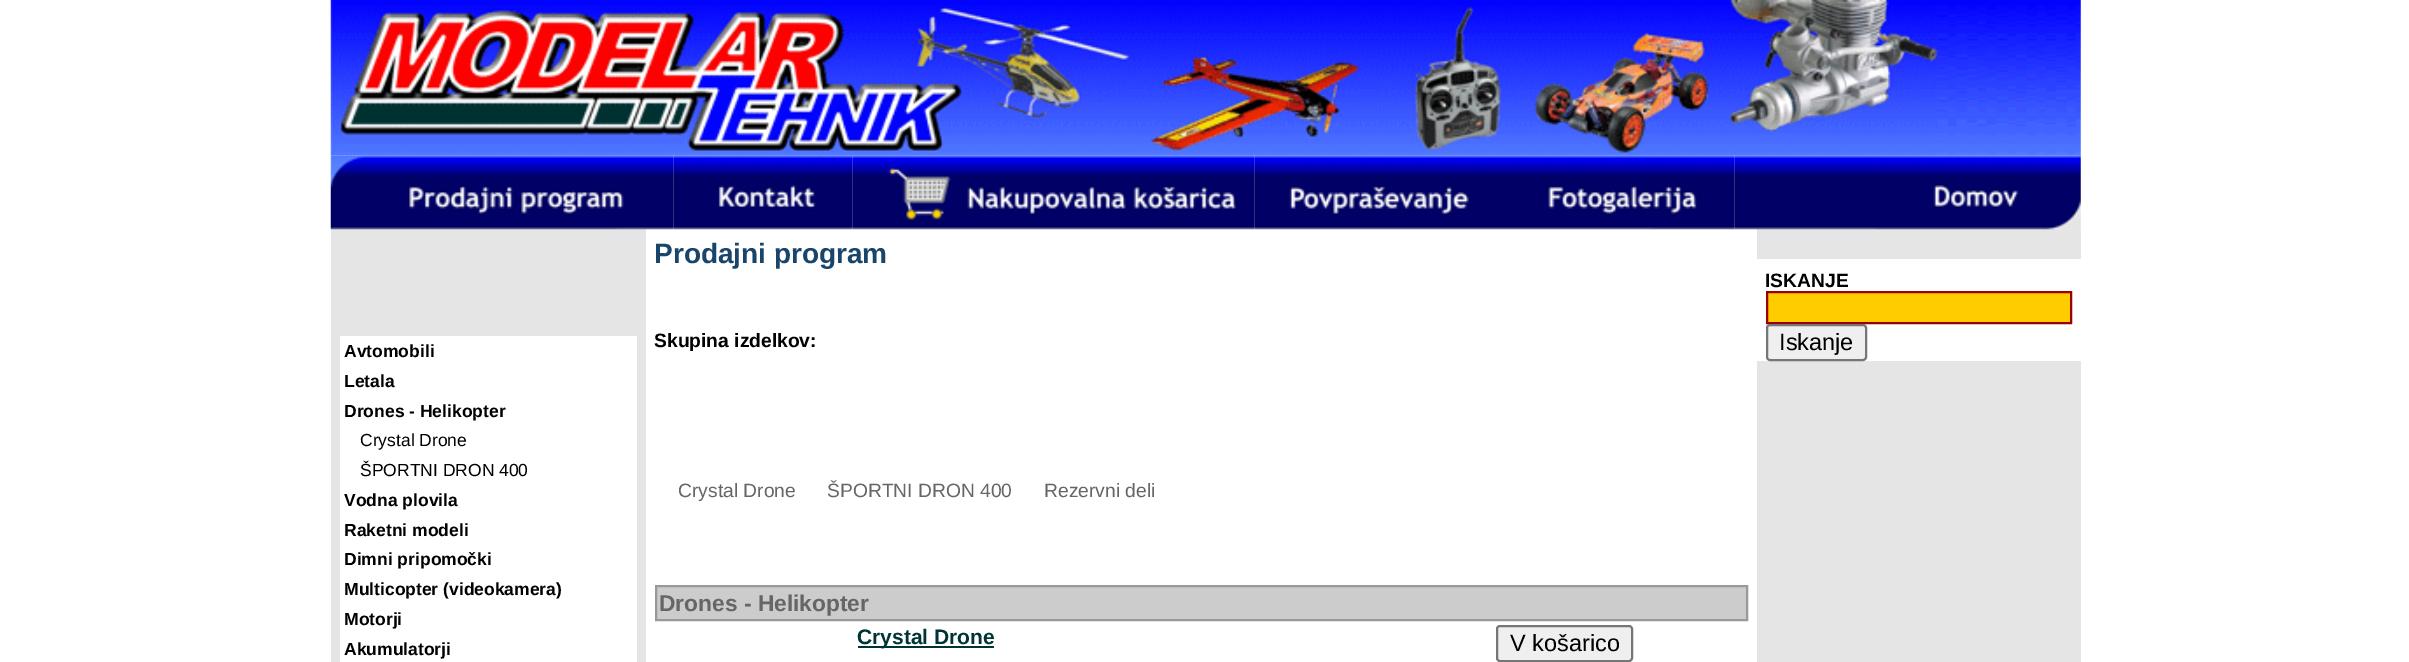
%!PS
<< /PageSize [2409 662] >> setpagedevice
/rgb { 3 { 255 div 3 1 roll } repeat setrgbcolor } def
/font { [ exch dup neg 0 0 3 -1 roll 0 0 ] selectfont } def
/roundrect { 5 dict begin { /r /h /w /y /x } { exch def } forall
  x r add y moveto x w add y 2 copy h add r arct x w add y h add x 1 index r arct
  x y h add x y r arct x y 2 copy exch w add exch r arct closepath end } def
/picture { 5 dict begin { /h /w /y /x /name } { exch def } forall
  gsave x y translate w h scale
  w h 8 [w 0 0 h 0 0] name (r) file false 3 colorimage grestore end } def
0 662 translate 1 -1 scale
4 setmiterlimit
255 255 255 rgb
0 0 2409 662 rectfill
(img/1.rgb) 330 0 1751 156 picture
229 229 229 rgb
331 229 315 433 rectfill
(img/2.rgb) 330 155 344 75 picture
(img/3.rgb) 673 155 180 75 picture
(img/4.rgb) 852 155 403 75 picture
(img/5.rgb) 1254 155 244 75 picture
(img/6.rgb) 1498 155 237 75 picture
1757 229 324 433 rectfill
(img/7.rgb) 1734 155 142 75 picture
(img/8.rgb) 1876 155 205 75 picture
204 204 204 rgb
656 586 moveto 1747 586 lineto 1747 620 lineto 656 620 lineto closepath gsave fill grestore
153 153 153 rgb
2 setlinewidth
stroke
0 51 51 rgb
858 646 136 2 rectfill
239 239 239 rgb
1497 626 135 35 3 roundrect gsave fill grestore
118 118 118 rgb
stroke
255 255 255 rgb
1757 259 324 102 rectfill
255 204 0 rgb
1767 292 moveto 2071 292 lineto 2071 323 lineto 1767 323 lineto closepath gsave fill grestore
153 0 0 rgb
stroke
239 239 239 rgb
1767 325 99 35 3 roundrect gsave fill grestore
118 118 118 rgb
stroke
255 255 255 rgb
340 336 297 326 rectfill
/LiberationSans-Bold 28 font
25 69 106 rgb
654 263 moveto (Prodajni program) show
/LiberationSans-Bold 19.25 font
0 0 0 rgb
654 347 moveto (Skupina izdelkov:) show
/LiberationSans-Regular 19.25 font
102 102 102 rgb
[
  [(Crystal Drone) 678 497]
  [(ŠPORTNI DRON 400) 827 497]
  [(Rezervni deli) 1044 497]
] { aload pop moveto show } forall
/LiberationSans-Bold 22.75 font
659 611 moveto (Drones - Helikopter) show
/LiberationSans-Bold 21 font
0 51 51 rgb
857 644 moveto (Crystal Drone) show
/LiberationSans-Regular 23.5 font
0 0 0 rgb
1510 651 moveto (V košarico) show
/LiberationSans-Bold 19.25 font
1765 287 moveto (ISKANJE) show
/LiberationSans-Regular 23.5 font
1779 350 moveto (Iskanje) show
/LiberationSans-Bold 17.5 font
[
  [(Avtomobili) 344 357]
  [(Letala) 344 387]
  [(Drones - Helikopter) 344 417]
] { aload pop moveto show } forall
/LiberationSans-Regular 17.5 font
360 446 moveto (Crystal Drone) show
360 476 moveto (ŠPORTNI DRON 400) show
/LiberationSans-Bold 17.5 font
[
  [(Vodna plovila) 344 506]
  [(Raketni modeli) 344 536]
  [(Dimni pripomočki) 344 565]
  [(Multicopter \(videokamera\)) 344 595]
  [(Motorji) 344 625]
  [(Akumulatorji) 344 655]
] { aload pop moveto show } forall
showpage
